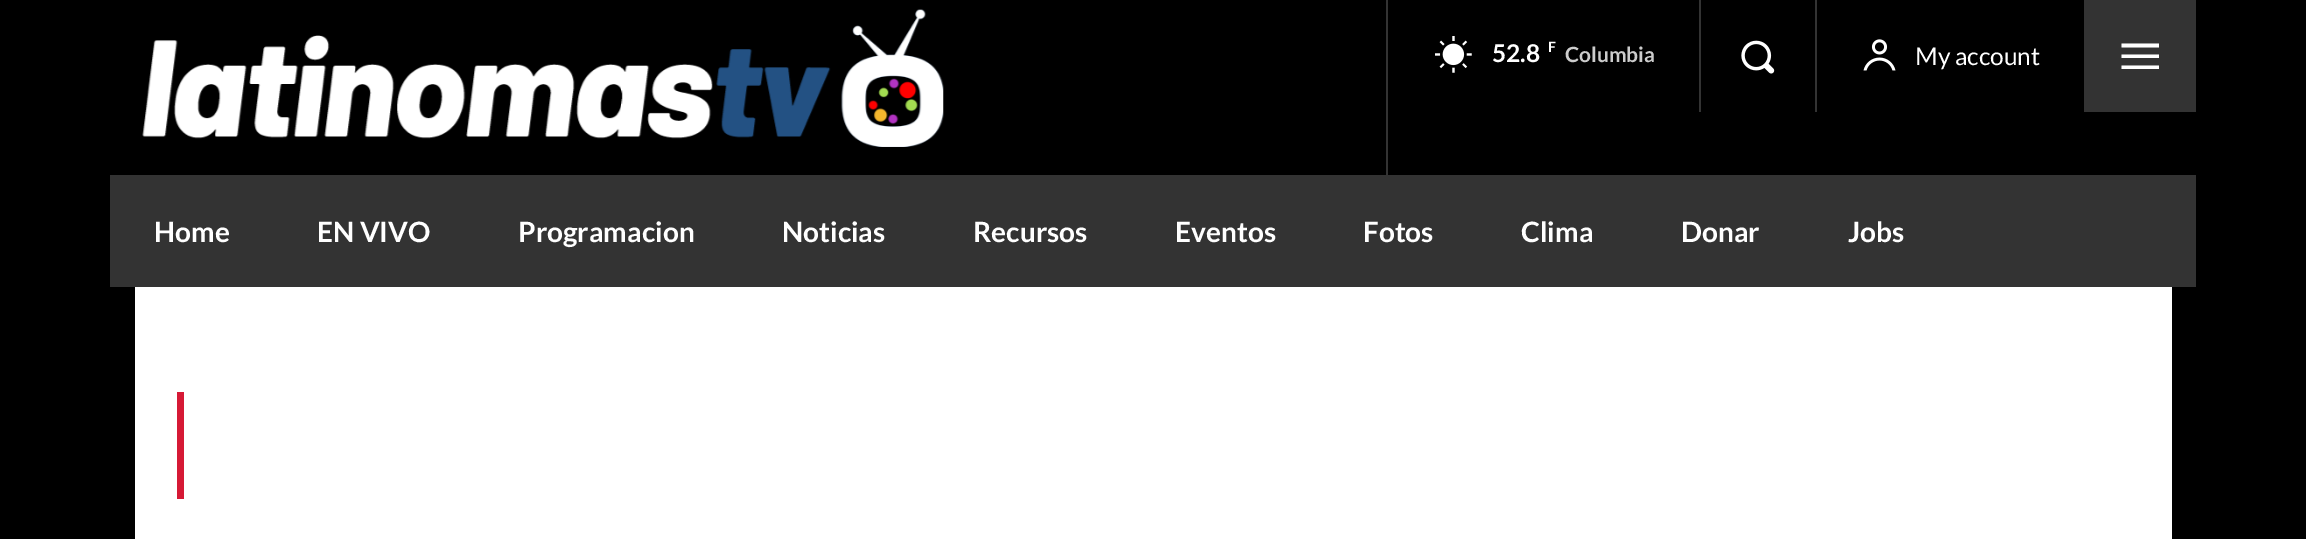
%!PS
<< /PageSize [2306 539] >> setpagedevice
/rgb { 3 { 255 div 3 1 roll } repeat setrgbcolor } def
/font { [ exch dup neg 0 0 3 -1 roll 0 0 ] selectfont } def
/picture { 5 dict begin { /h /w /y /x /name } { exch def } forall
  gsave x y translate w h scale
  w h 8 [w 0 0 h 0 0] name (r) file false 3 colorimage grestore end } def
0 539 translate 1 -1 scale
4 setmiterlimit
0 0 0 rgb
0 0 2306 539 rectfill
(img/1.rgb) 142 9 802 138 picture
51 51 51 rgb
1386 0 2 175 rectfill
1699 0 2 112 rectfill
(img/2.rgb) 1435 36 37 37 picture
1815 0 2 112 rectfill
(img/3.rgb) 1741 40 34 34 picture
(img/4.rgb) 1863 39 33 32 picture
2084 0 112 112 rectfill
255 255 255 rgb
2159 47.5 moveto 2121.5 47.5 lineto 2121.5 43.5 lineto 2159 43.5 lineto closepath 2159 58 moveto 2121.5 58 lineto 2121.5 54.5 lineto 2159 54.5 lineto closepath 2159 69 moveto 2121.5 69 lineto 2121.5 65.5 lineto 2159 65.5 lineto closepath fill
[
  [110 175 2086 112 51 51 51]
  [135 287 2037 252 255 255 255]
  [177 392 7 107 214 25 53]
] { aload pop rgb rectfill } forall
/Lato-Bold 24.5 font
255 255 255 rgb
1492 62 moveto (52.8) show
/Lato-Bold 14 font
1548 52 moveto (F) show
/Lato-Bold 21 font
204 204 204 rgb
1565 62 moveto (Columbia) show
/Lato-Regular 24.5 font
255 255 255 rgb
1915 65 moveto (My account) show
/Lato-Bold 28 font
[
  [(Home) 154 242]
  [(EN VIVO) 317 242]
  [(Programacion) 518 242]
  [(Noticias) 782 242]
  [(Recursos) 973 242]
  [(Eventos) 1175 242]
  [(Fotos) 1363 242]
  [(Clima) 1521 242]
  [(Donar) 1681 242]
  [(Jobs) 1848 242]
] { aload pop moveto show } forall
showpage
